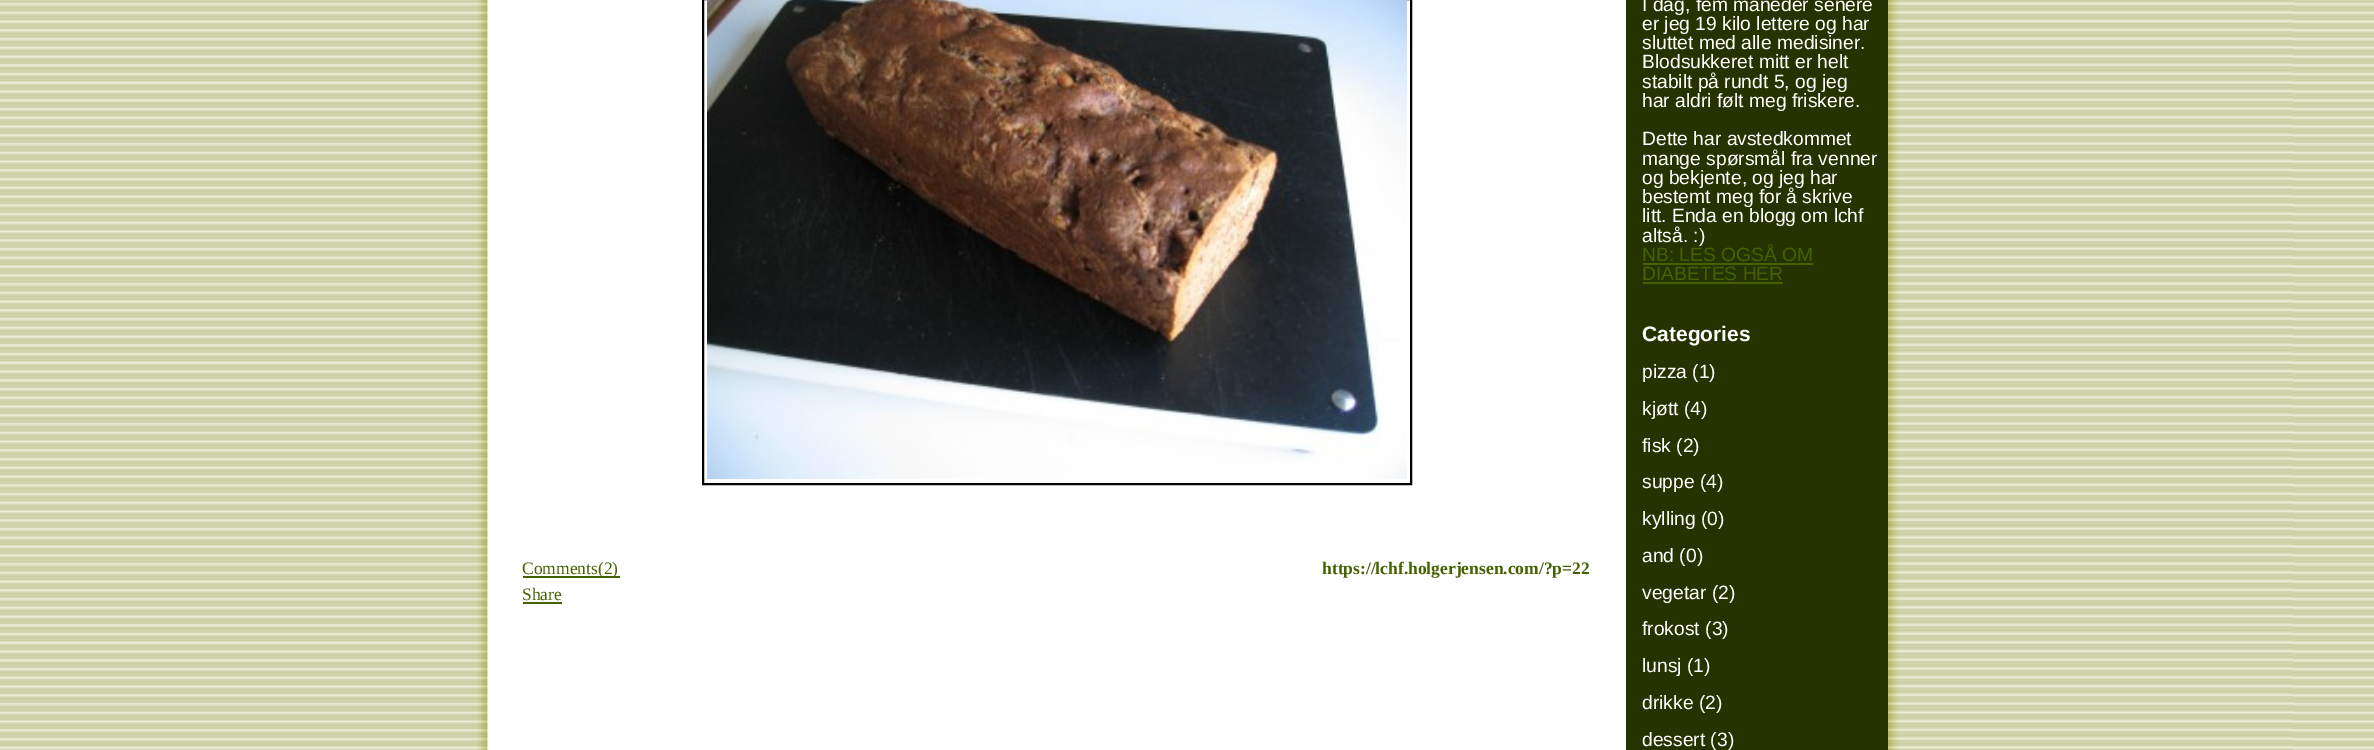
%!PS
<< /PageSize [2374 750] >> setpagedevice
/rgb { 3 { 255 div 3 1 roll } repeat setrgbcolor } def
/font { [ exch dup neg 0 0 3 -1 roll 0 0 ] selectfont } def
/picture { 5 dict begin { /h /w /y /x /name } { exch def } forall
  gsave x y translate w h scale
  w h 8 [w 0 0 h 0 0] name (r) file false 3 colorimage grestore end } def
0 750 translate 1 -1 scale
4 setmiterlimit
255 255 255 rgb
0 0 2374 750 rectfill
(img/1.rgb) 0 0 2374 750 picture
0 0 0 rgb
2 setlinewidth
703 -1 708 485 rectstroke
(img/2.rgb) 707 0 700 479 picture
[
  [523 576 97 2 68 98 0]
  [523 602 39 2 68 98 0]
  [1626 0 262 750 36 51 0]
  [1643 263 170 2 68 98 0]
  [1643 282 140 2 68 98 0]
] { aload pop rgb rectfill } forall
/LiberationSerif-Regular 17.5 font
522 574 moveto (Comments\(2\)) show
/LiberationSerif-Bold 17.5 font
1322 574 moveto (https://lchf.holgerjensen.com/?p=22) show
/LiberationSerif-Regular 17.5 font
522 600 moveto (Share) show
/LiberationSans-Regular 19.25 font
255 255 255 rgb
[
  [(I dag, fem måneder senere) 1642 11]
  [(er jeg 19 kilo lettere og har) 1642 30]
  [(sluttet med alle medisiner.) 1642 49]
  [(Blodsukkeret mitt er helt) 1642 68]
  [(stabilt på rundt 5, og jeg) 1642 88]
  [(har aldri følt meg friskere.) 1642 107]
  [(Dette har avstedkommet) 1642 145]
  [(mange spørsmål fra venner) 1642 165]
  [(og bekjente, og jeg har) 1642 184]
  [(bestemt meg for å skrive) 1642 203]
  [(litt. Enda en blogg om lchf) 1642 222]
  [(altså. :\)) 1642 242]
] { aload pop moveto show } forall
68 98 0 rgb
1642 261 moveto (NB: LES OGSÅ OM) show
1642 280 moveto (DIABETES HER) show
/LiberationSans-Bold 21 font
255 255 255 rgb
1642 341 moveto (Categories) show
/LiberationSans-Regular 19.25 font
[
  [(pizza \(1\)) 1642 378]
  [(kjøtt \(4\)) 1642 415]
  [(fisk \(2\)) 1642 452]
  [(suppe \(4\)) 1642 488]
  [(kylling \(0\)) 1642 525]
  [(and \(0\)) 1642 562]
  [(vegetar \(2\)) 1642 599]
  [(frokost \(3\)) 1642 635]
  [(lunsj \(1\)) 1642 672]
  [(drikke \(2\)) 1642 709]
  [(dessert \(3\)) 1642 746]
] { aload pop moveto show } forall
showpage
